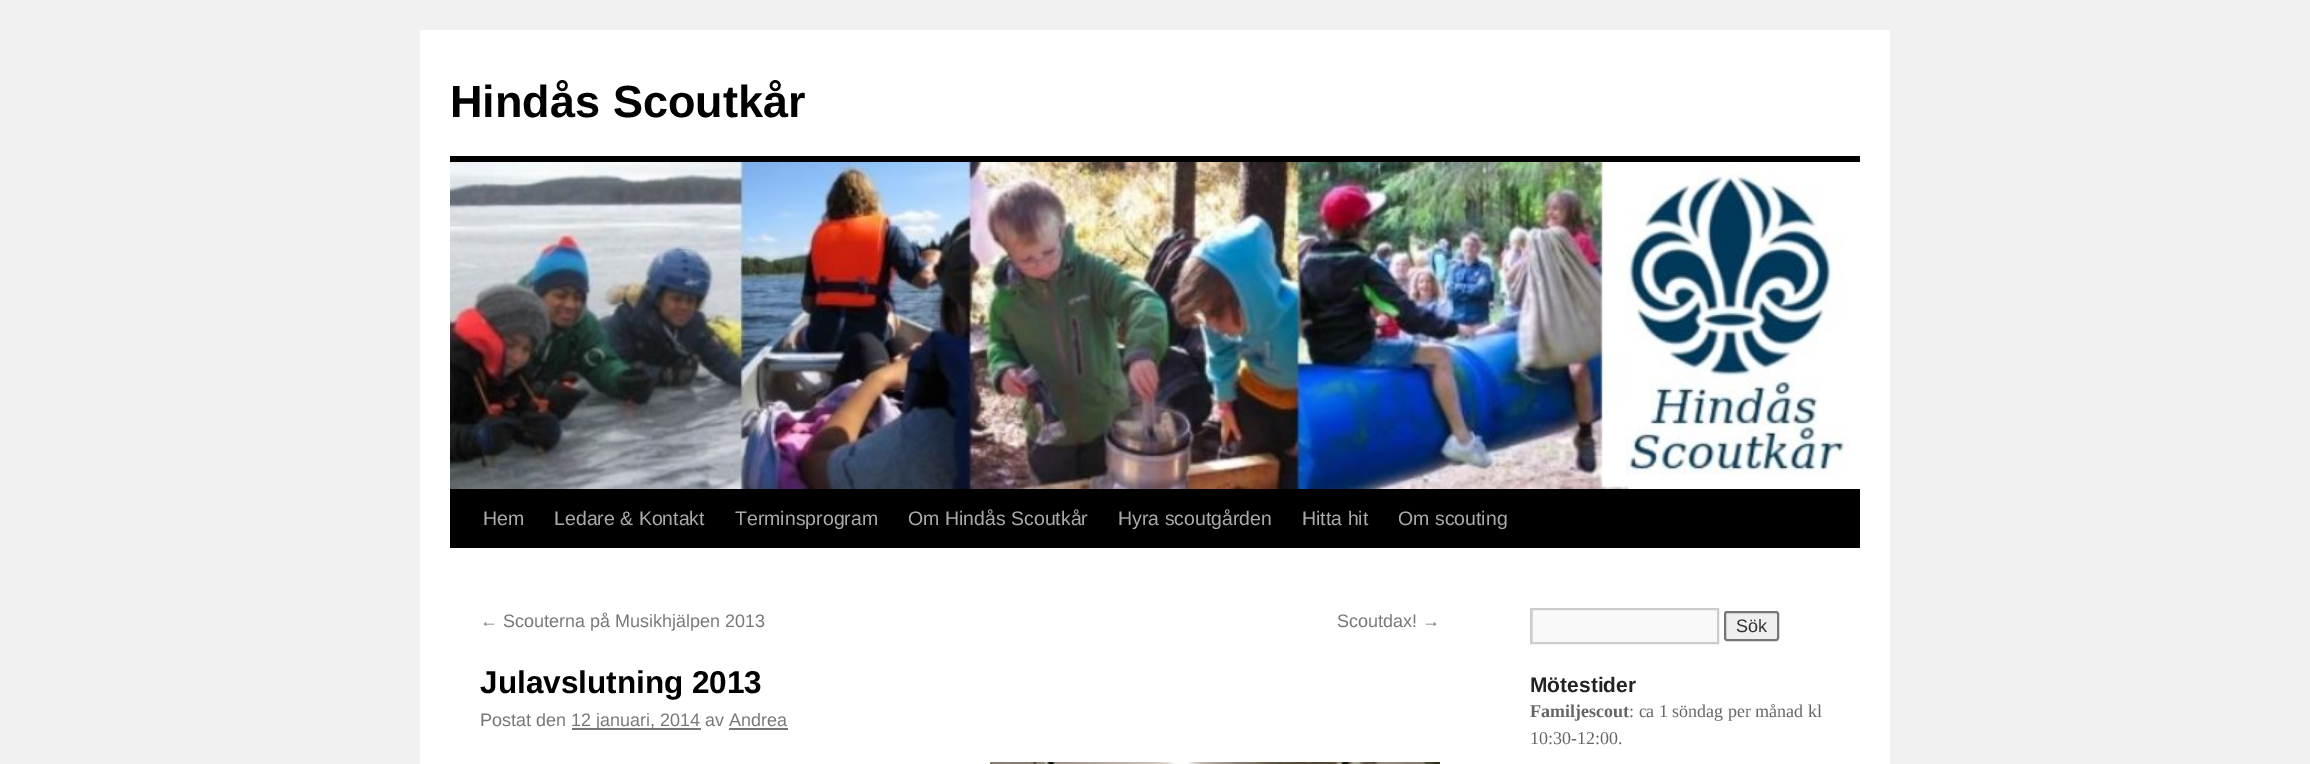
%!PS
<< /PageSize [2310 764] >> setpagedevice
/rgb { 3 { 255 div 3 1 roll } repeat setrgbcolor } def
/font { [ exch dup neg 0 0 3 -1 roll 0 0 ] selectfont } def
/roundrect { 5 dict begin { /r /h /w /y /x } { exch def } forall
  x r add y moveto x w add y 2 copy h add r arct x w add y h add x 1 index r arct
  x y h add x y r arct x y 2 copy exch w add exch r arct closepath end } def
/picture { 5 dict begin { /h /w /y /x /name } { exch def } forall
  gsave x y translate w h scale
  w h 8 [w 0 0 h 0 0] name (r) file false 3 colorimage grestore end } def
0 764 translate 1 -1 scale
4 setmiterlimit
241 241 241 rgb
0 0 2310 764 rectfill
[
  [420 30 1470 734 255 255 255]
  [450 156 1410 6 0 0 0]
  [450 489 1410 59 0 0 0]
] { aload pop rgb rectfill } forall
(img/1.rgb) 450 162 1402 327 picture
119 119 119 rgb
572 728 129 2 rectfill
729 728 59 2 rectfill
(img/2.rgb) 990 762 450 2 picture
249 249 249 rgb
1533 610 184 32 rectfill
gsave
1532 609 186 33 rectclip
224 224 224 rgb
1383 460 moveto 1866 460 lineto 1866 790 lineto 1383 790 lineto closepath 1533 610 moveto 1719 610 lineto 1719 644 lineto 1533 644 lineto closepath eofill
grestore
204 204 204 rgb
2 setlinewidth
1531 609 187 34 rectstroke
239 239 239 rgb
1725 612 53 28 2 roundrect gsave fill grestore
118 118 118 rgb
stroke
/LiberationSans-Bold 45 font
0 0 0 rgb
450 117 moveto (Hindås Scoutkår) show
/LiberationSans-Regular 19.5 font
170 170 170 rgb
[
  [(Hem) 483 525]
  [(Ledare & Kontakt) 554 525]
  [(Terminsprogram) 735 525]
  [(Om Hindås Scoutkår) 908 525]
  [(Hyra scoutgården) 1118 525]
  [(Hitta hit) 1302 525]
  [(Om scouting) 1398 525]
] { aload pop moveto show } forall
/LiberationSans-Regular 18 font
119 119 119 rgb
480 627 moveto (← Scouterna på Musikhjälpen 2013) show
1337 627 moveto (Scoutdax! →) show
/LiberationSans-Bold 31.5 font
0 0 0 rgb
480 693 moveto (Julavslutning 2013) show
/LiberationSans-Regular 18 font
119 119 119 rgb
480 726 moveto (Postat den) show
571 726 moveto (12 januari, 2014 av Andrea) show
51 51 51 rgb
1736 632 moveto (Sök) show
/LiberationSans-Bold 21 font
34 34 34 rgb
1530 692 moveto (Mötestider) show
/LiberationSerif-Bold 18 font
102 102 102 rgb
1530 717 moveto (Familjescout) show
/LiberationSerif-Regular 18 font
1629 717 moveto (: ca 1 söndag per månad kl) show
1530 744 moveto (10:30-12:00.) show
showpage
